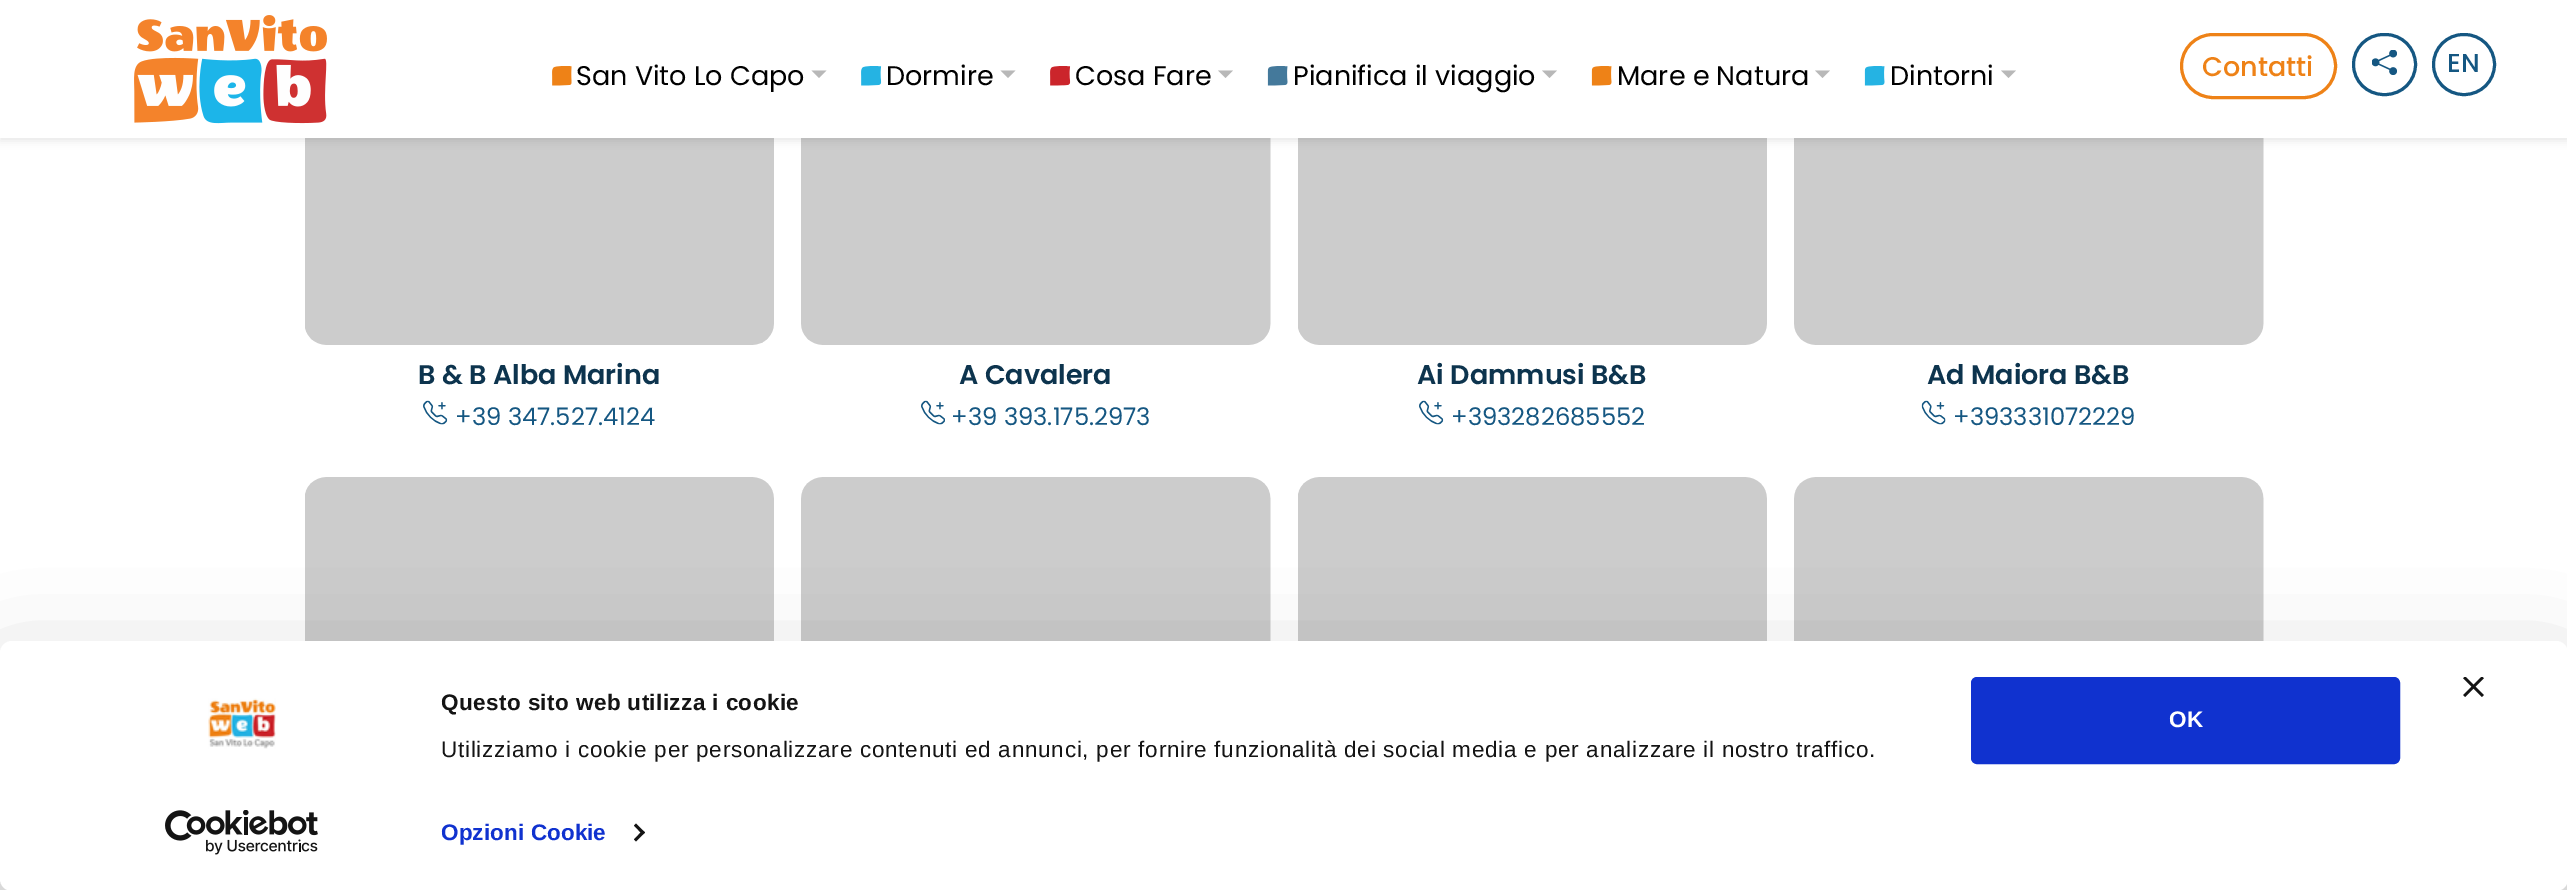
%!PS
<< /PageSize [2567 890] /PageUsesTransparency true >> setpagedevice
/rgb { 3 { 255 div 3 1 roll } repeat setrgbcolor } def
/font { [ exch dup neg 0 0 3 -1 roll 0 0 ] selectfont } def
/alpha { dup .setfillconstantalpha .setstrokeconstantalpha } def
/roundrect { 5 dict begin { /r /h /w /y /x } { exch def } forall
  x r add y moveto x w add y 2 copy h add r arct x w add y h add x 1 index r arct
  x y h add x y r arct x y 2 copy exch w add exch r arct closepath end } def
/shadow { 12 dict begin { /a /b /q /h /w /y /x } { exch def } forall gsave /was 0 def
  9 -2 -9 { dup b mul 4 div /e exch def 1 sub .425 mul 2.718 exch exp 1 add a .99 .min exch div /now exch def
    1 1 now sub 1 was sub div sub alpha /was now def
    w h .min e 2 mul add 0 gt { x e sub y e sub w e 2 mul add h e 2 mul add
      q e add b .6 mul add w h .min 2 div e add .min 0 .max roundrect fill } if } for grestore end } def
/picture { 5 dict begin { /h /w /y /x /name } { exch def } forall
  gsave x y translate w h scale
  w h 8 [w 0 0 h 0 0] name (r) file false 3 colorimage grestore end } def
0 .pushpdf14devicefilter
0 890 translate 1 -1 scale
4 setmiterlimit
255 255 255 rgb
0 0 2567 890 rectfill
(img/9.rgb) 305 138 469 207 picture
(img/11.rgb) 801 138 470 207 picture
(img/13.rgb) 1298 138 469 207 picture
(img/11.rgb) 1794 138 470 207 picture
0 0 0 rgb
0 3 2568 138 0 4 0.09 shadow
255 255 255 rgb
0 0 2567 138 rectfill
(img/1.rgb) 134 15 193 109 picture
(img/2.rgb) 552 66 20 20 picture
184 184 184 rgb
811.5 70.5 moveto 826.5 70.5 lineto 819 78 lineto closepath fill
(img/3.rgb) 861 66 21 20 picture
1000.5 70.5 moveto 1015.5 70.5 lineto 1008 78 lineto closepath fill
(img/4.rgb) 1050 66 21 20 picture
1218 70.5 moveto 1233 70.5 lineto 1225.5 78 lineto closepath fill
(img/5.rgb) 1267 66 21 20 picture
1542 70.5 moveto 1557 70.5 lineto 1549.5 78 lineto closepath fill
(img/6.rgb) 1591 66 21 20 picture
1815 70.5 moveto 1830 70.5 lineto 1822.5 78 lineto closepath fill
(img/7.rgb) 1864 66 21 20 picture
2001 70.5 moveto 2016 70.5 lineto 2008.5 78 lineto closepath fill
238 130 23 rgb
3 setlinewidth
2181.5 34.5 154 63 31.5 roundrect stroke
21 87 130 rgb
2353.5 34.5 62 60 30 roundrect stroke
(img/8.rgb) 2372 50 25 25 picture
2433.5 34.5 61 60 30 roundrect stroke
(img/10.rgb) 423 400 25 25 picture
(img/12.rgb) 921 400 24 25 picture
(img/14.rgb) 1419 400 25 25 picture
(img/15.rgb) 1921 400 25 25 picture
(img/16.rgb) 305 477 469 164 picture
(img/17.rgb) 801 477 470 164 picture
(img/18.rgb) 1298 477 469 164 picture
(img/17.rgb) 1794 477 470 164 picture
0 0 0 rgb
0 686 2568 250 12 52.5 0.3 shadow
255 255 255 rgb
0 641 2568 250 12 roundrect fill
(img/19.rgb) 2463 677 21 20 picture
(img/20.rgb) 208 698 68 51 picture
(img/21.rgb) 165 810 153 45 picture
20 20 20 rgb
636 823.5 moveto 645 832.5 lineto 642.5 834.5 lineto 634 825.5 lineto closepath fill
642.5 830.5 moveto 645 832.5 lineto 636 841.5 lineto 634 839.5 lineto closepath fill
16 50 207 rgb
1972.5 678.5 426 84 4.5 roundrect gsave fill grestore
stroke
/Poppins-Regular 27 font
0 0 0 rgb
[
  [(San Vito Lo Capo) 576 85]
  [(Dormire) 886 85]
  [(Cosa Fare) 1075 85]
  [(Pianifica il viaggio) 1293 85]
  [(Mare e Natura) 1617 85]
  [(Dintorni) 1890 85]
] { aload pop moveto show } forall
/Poppins-Medium 27 font
238 130 23 rgb
2202 76 moveto (Contatti) show
/Poppins-Medium 26 font
21 87 130 rgb
2447 72 moveto (EN) show
/Poppins-SemiBold 27 font
13 52 78 rgb
418 384 moveto (B & B Alba Marina) show
/Poppins-Regular 24.25 font
21 87 130 rgb
455 425 moveto (+39 347.527.4124) show
/Poppins-SemiBold 27 font
13 52 78 rgb
959 384 moveto (A Cavalera) show
/Poppins-Regular 24.25 font
21 87 130 rgb
951 425 moveto (+39 393.175.2973) show
/Poppins-SemiBold 27 font
13 52 78 rgb
1417 384 moveto (Ai Dammusi B&B) show
/Poppins-Regular 24.25 font
21 87 130 rgb
1451 425 moveto (+393282685552) show
/Poppins-SemiBold 27 font
13 52 78 rgb
1927 384 moveto (Ad Maiora B&B) show
/Poppins-Regular 24.25 font
21 87 130 rgb
1953 425 moveto (+393331072229) show
/LiberationSans-Bold 22.5 font
20 20 20 rgb
441 710 moveto 0.4 0 (Questo sito web utilizza i cookie) ashow
/LiberationSans-Regular 22.5 font
441 757 moveto 0.75 0 (Utilizziamo i cookie per personalizzare contenuti ed annunci, per fornire funzionalità dei social media e per analizzare il nostro traffico.) ashow
/LiberationSans-Bold 22.5 font
16 50 207 rgb
441 840 moveto 0.1 0 (Opzioni Cookie) ashow
255 255 255 rgb
2169 727 moveto (OK) show
.poppdf14devicefilter showpage
